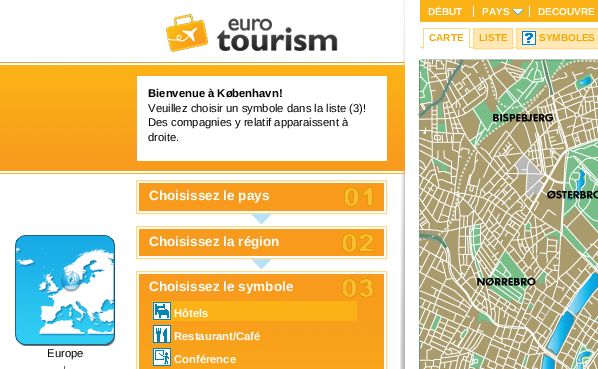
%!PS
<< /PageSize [598 369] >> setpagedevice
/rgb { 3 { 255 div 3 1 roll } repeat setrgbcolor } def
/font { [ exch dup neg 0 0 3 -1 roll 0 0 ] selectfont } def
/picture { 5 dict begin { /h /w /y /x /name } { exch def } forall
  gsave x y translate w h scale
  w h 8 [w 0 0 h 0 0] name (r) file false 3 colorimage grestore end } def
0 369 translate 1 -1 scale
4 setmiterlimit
255 255 255 rgb
0 0 598 369 rectfill
(img/1.rgb) 0 62 400 112 picture
(img/2.rgb) 400 0 5 369 picture
[
  [420 0 178 22 251 178 22]
  [473 6 1 11 255 255 255]
  [529 6 1 11 255 255 255]
] { aload pop rgb rectfill } forall
(img/3.rgb) 512 9 12 6 picture
[
  [420 47 96 1 255 217 136]
  [424 47 45 1 255 255 255]
  [423 28 47 1 255 217 136]
  [469 28 1 21 255 217 136]
  [469 48 1 1 255 255 255]
  [423 28 1 21 255 217 136]
] { aload pop rgb rectfill } forall
255 232 182 rgb
473.5 28.5 moveto 512.5 28.5 lineto 512.5 48.5 lineto 473.5 48.5 lineto closepath gsave fill grestore
255 217 136 rgb
stroke
255 232 182 rgb
517 29 81 19 rectfill
(img/4.rgb) 522 31 14 14 picture
255 217 136 rgb
516.5 28.5 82 20 rectstroke
(img/5.rgb) 418 59 180 310 picture
(img/6.rgb) 166 14 172 38 picture
255 255 255 rgb
137 76 250 85 rectfill
(img/7.rgb) 15 235 100 111 picture
102 102 102 rgb
64 366 1 3 rectfill
255 217 136 rgb
136.5 180.5 250 33 rectstroke
248 155 29 rgb
139 183 245 28 rectfill
(img/8.rgb) 344 187 29 20 picture
(img/9.rgb) 251 214 21 10 picture
255 217 136 rgb
136.5 226.5 250 32 rectstroke
248 155 29 rgb
139 229 245 27 rectfill
(img/10.rgb) 342 233 32 20 picture
(img/9.rgb) 251 259 21 10 picture
255 217 136 rgb
136.5 271.5 250 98 rectstroke
(img/11.rgb) 139 274 245 95 picture
(img/12.rgb) 342 278 32 20 picture
251 178 22 rgb
152 301 205 20 rectfill
(img/13.rgb) 153 302 18 18 picture
(img/14.rgb) 153 325 18 18 picture
(img/15.rgb) 153 348 18 18 picture
/LiberationSans-Bold 10 font
255 255 255 rgb
[
  [(DÉBUT) 428 15]
  [(PAYS) 482 15]
  [(DECOUVRE) 538 15]
] { aload pop moveto show } forall
245 167 0 rgb
[
  [(CARTE) 429 41]
  [(LISTE) 479 41]
  [(SYMBOLES) 539 41]
] { aload pop moveto show } forall
/LiberationSans-Bold 11.25 font
0 0 0 rgb
148 97 moveto (Bienvenue à København!) show
/LiberationSans-Regular 11.25 font
[
  [(Veuillez choisir un symbole dans la liste \(3\)!) 148 112]
  [(Des compagnies y relatif apparaissent à) 148 126]
  [(droite.) 148 141]
  [(Europe) 47 357]
] { aload pop moveto show } forall
/LiberationSans-Bold 13.5 font
255 255 255 rgb
[
  [(Choisissez le pays) 149 200]
  [(Choisissez la région) 149 246]
  [(Choisissez le symbole) 149 291]
] { aload pop moveto show } forall
/LiberationSans-Bold 11.25 font
[
  [(Hôtels) 174 317]
  [(Restaurant/Café) 174 340]
  [(Conférence) 174 363]
] { aload pop moveto show } forall
showpage
